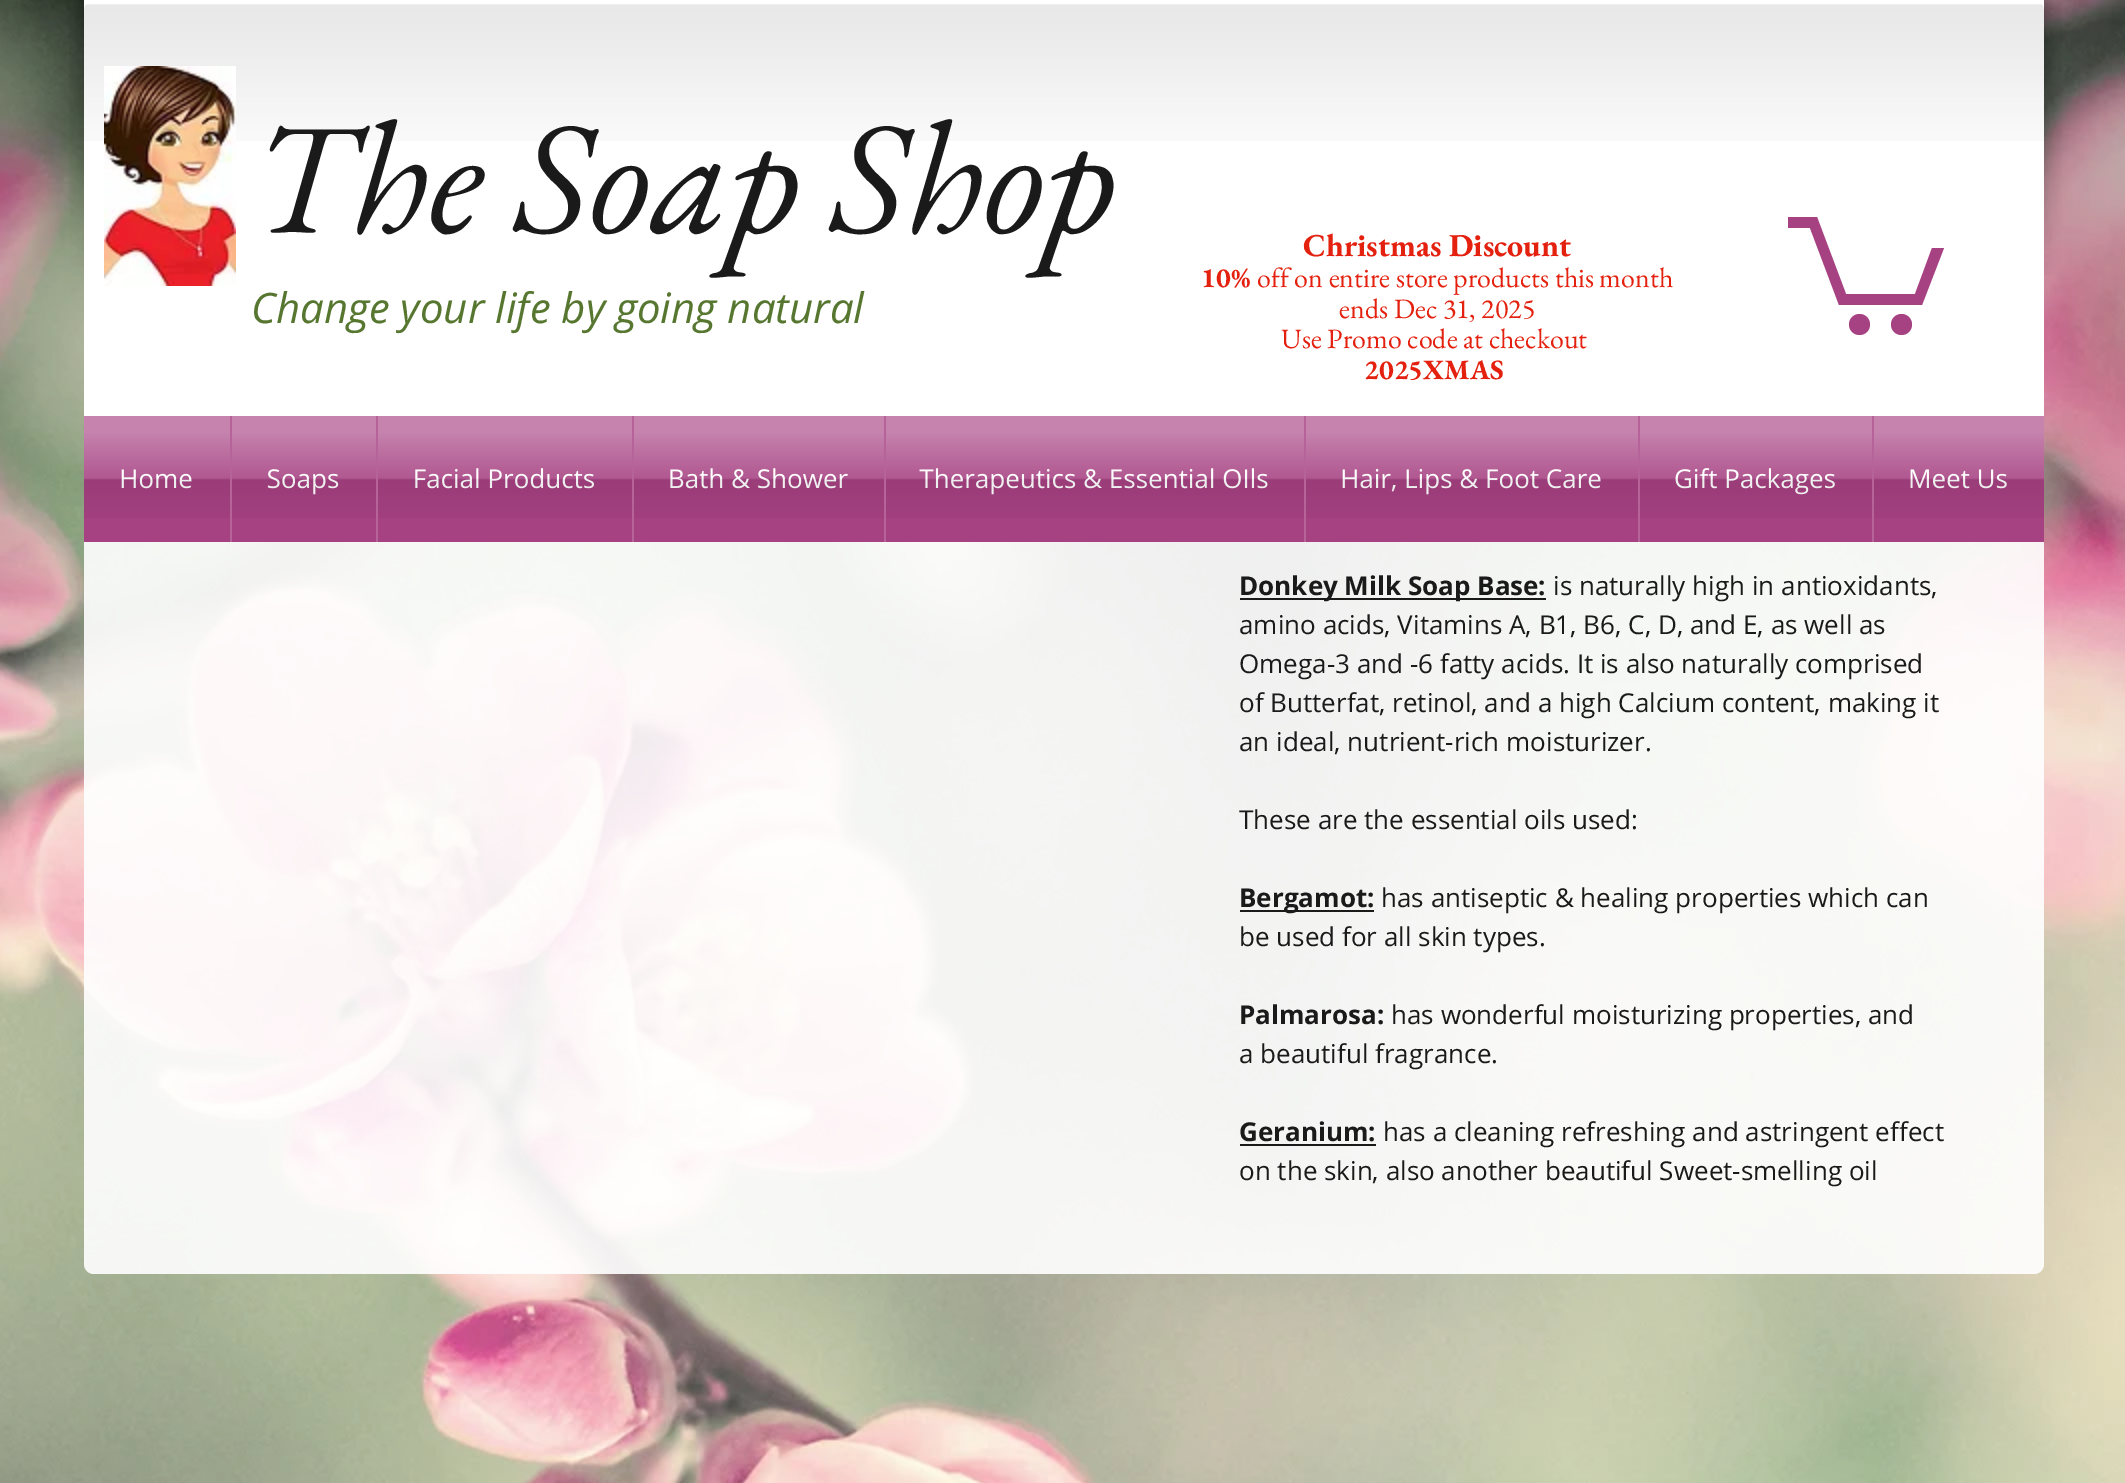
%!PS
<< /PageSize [2125 1483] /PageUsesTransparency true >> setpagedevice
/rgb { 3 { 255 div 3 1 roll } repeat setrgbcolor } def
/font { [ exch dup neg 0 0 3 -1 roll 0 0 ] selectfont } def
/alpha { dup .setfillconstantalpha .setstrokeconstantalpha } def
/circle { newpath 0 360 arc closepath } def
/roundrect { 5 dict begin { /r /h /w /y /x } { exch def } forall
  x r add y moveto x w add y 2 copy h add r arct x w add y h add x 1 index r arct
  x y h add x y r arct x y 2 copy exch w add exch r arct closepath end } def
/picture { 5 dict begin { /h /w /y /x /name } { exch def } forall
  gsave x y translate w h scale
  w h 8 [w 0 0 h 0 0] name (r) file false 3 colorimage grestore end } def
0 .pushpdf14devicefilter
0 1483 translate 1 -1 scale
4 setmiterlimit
255 255 255 rgb
0 0 2125 1483 rectfill
(img/1.rgb) 0 0 2125 1483 picture
(img/2.rgb) 69 0 15 267 picture
0.9 alpha
84 -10 1960 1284 10 roundrect fill
1 alpha
84 0 1960 416 rectfill
(img/3.rgb) 2044 0 18 275 picture
0.75 alpha
84 0 1960 542 10 roundrect fill
1 alpha
(img/4.rgb) 84 4 1960 137 picture
(img/5.rgb) 104 66 132 220 picture
166 65 130 rgb
1944 248 moveto 1922 305 lineto 1839 305 lineto 1810 228 lineto 1788 228 lineto 1788 217 lineto 1817 217 lineto 1846 294 lineto 1915 294 lineto 1932 248 lineto fill
1901.5 324.5 10.5 circle fill
1859.5 324.5 10.5 circle fill
[
  [84 416 146 126 166 65 130]
  [232 416 144 126 166 65 130]
  [230 416 2 126 182 99 153]
  [378 416 254 126 166 65 130]
  [376 416 2 126 182 99 153]
  [634 416 250 126 166 65 130]
  [632 416 2 126 182 99 153]
  [886 416 418 126 166 65 130]
  [884 416 2 126 182 99 153]
  [1306 416 332 126 166 65 130]
  [1304 416 2 126 182 99 153]
  [1640 416 232 126 166 65 130]
  [1638 416 2 126 182 99 153]
  [1874 416 170 126 166 65 130]
  [1872 416 2 126 182 99 153]
  [1240 598 306 2 26 26 26]
  [1240 910 134 2 26 26 26]
  [1240 1144 136 2 26 26 26]
] { aload pop rgb rectfill } forall
/EBGaramond-Italic 160 font
251 232 moveto (The Soap Shop) show
/EBGaramond-Bold 32 font
228 32 14 rgb
1303 256 moveto (Christmas Discount) show
/EBGaramond-Bold 28 font
1201 287 moveto (10%) show
/EBGaramond-Regular 28 font
[
  [(off on entire store products this month) 1257 287]
  [(ends Dec 31, 2025) 1339 318]
  [(Use Promo code at checkout) 1281 348]
] { aload pop moveto show } forall
/EBGaramond-Bold 28 font
1364 379 moveto (2025XMAS) show
/OpenSans-Italic 42 font
87 119 49 rgb
251 323 moveto (Change your life by going natural) show
/OpenSans-Regular 26 font
255 255 255 rgb
119 488 moveto (Home) show
(img/6.rgb) 84 416 146 102 picture
267 488 moveto (Soaps) show
(img/7.rgb) 232 416 144 102 picture
413 488 moveto (Facial Products) show
(img/8.rgb) 378 416 254 102 picture
668 488 moveto (Bath & Shower) show
(img/9.rgb) 634 416 250 102 picture
919 488 moveto (Therapeutics & Essential OIls) show
(img/10.rgb) 886 416 418 102 picture
1340 488 moveto (Hair, Lips & Foot Care) show
(img/11.rgb) 1306 416 332 102 picture
1674 488 moveto (Gift Packages) show
(img/12.rgb) 1640 416 232 102 picture
1908 488 moveto (Meet Us) show
(img/13.rgb) 1874 416 170 102 picture
/OpenSans-Bold 26 font
26 26 26 rgb
1239 595 moveto (Donkey Milk Soap Base:) show
/OpenSans-Regular 26 font
[
  [(is naturally high in antioxidants,) 1553 595]
  [(amino acids, Vitamins A, B1, B6, C, D, and E, as well as) 1239 634]
  [(Omega-3 and -6 fatty acids. It is also naturally comprised) 1239 673]
  [(of Butterfat, retinol, and a high Calcium content, making it) 1239 712]
  [(an ideal, nutrient-rich moisturizer.) 1239 751]
  [(These are the essential oils used:) 1239 829]
] { aload pop moveto show } forall
/OpenSans-Bold 26 font
1239 907 moveto (Bergamot:) show
/OpenSans-Regular 26 font
1381 907 moveto (has antiseptic & healing properties which can) show
1239 946 moveto (be used for all skin types.) show
/OpenSans-Bold 26 font
1239 1024 moveto (Palmarosa:) show
/OpenSans-Regular 26 font
1391 1024 moveto (has wonderful moisturizing properties, and) show
1239 1063 moveto (a beautiful fragrance.) show
/OpenSans-Bold 26 font
1239 1141 moveto (Geranium:) show
/OpenSans-Regular 26 font
1383 1141 moveto (has a cleaning refreshing and astringent effect) show
1239 1180 moveto (on the skin, also another beautiful Sweet-smelling oil) show
.poppdf14devicefilter showpage
